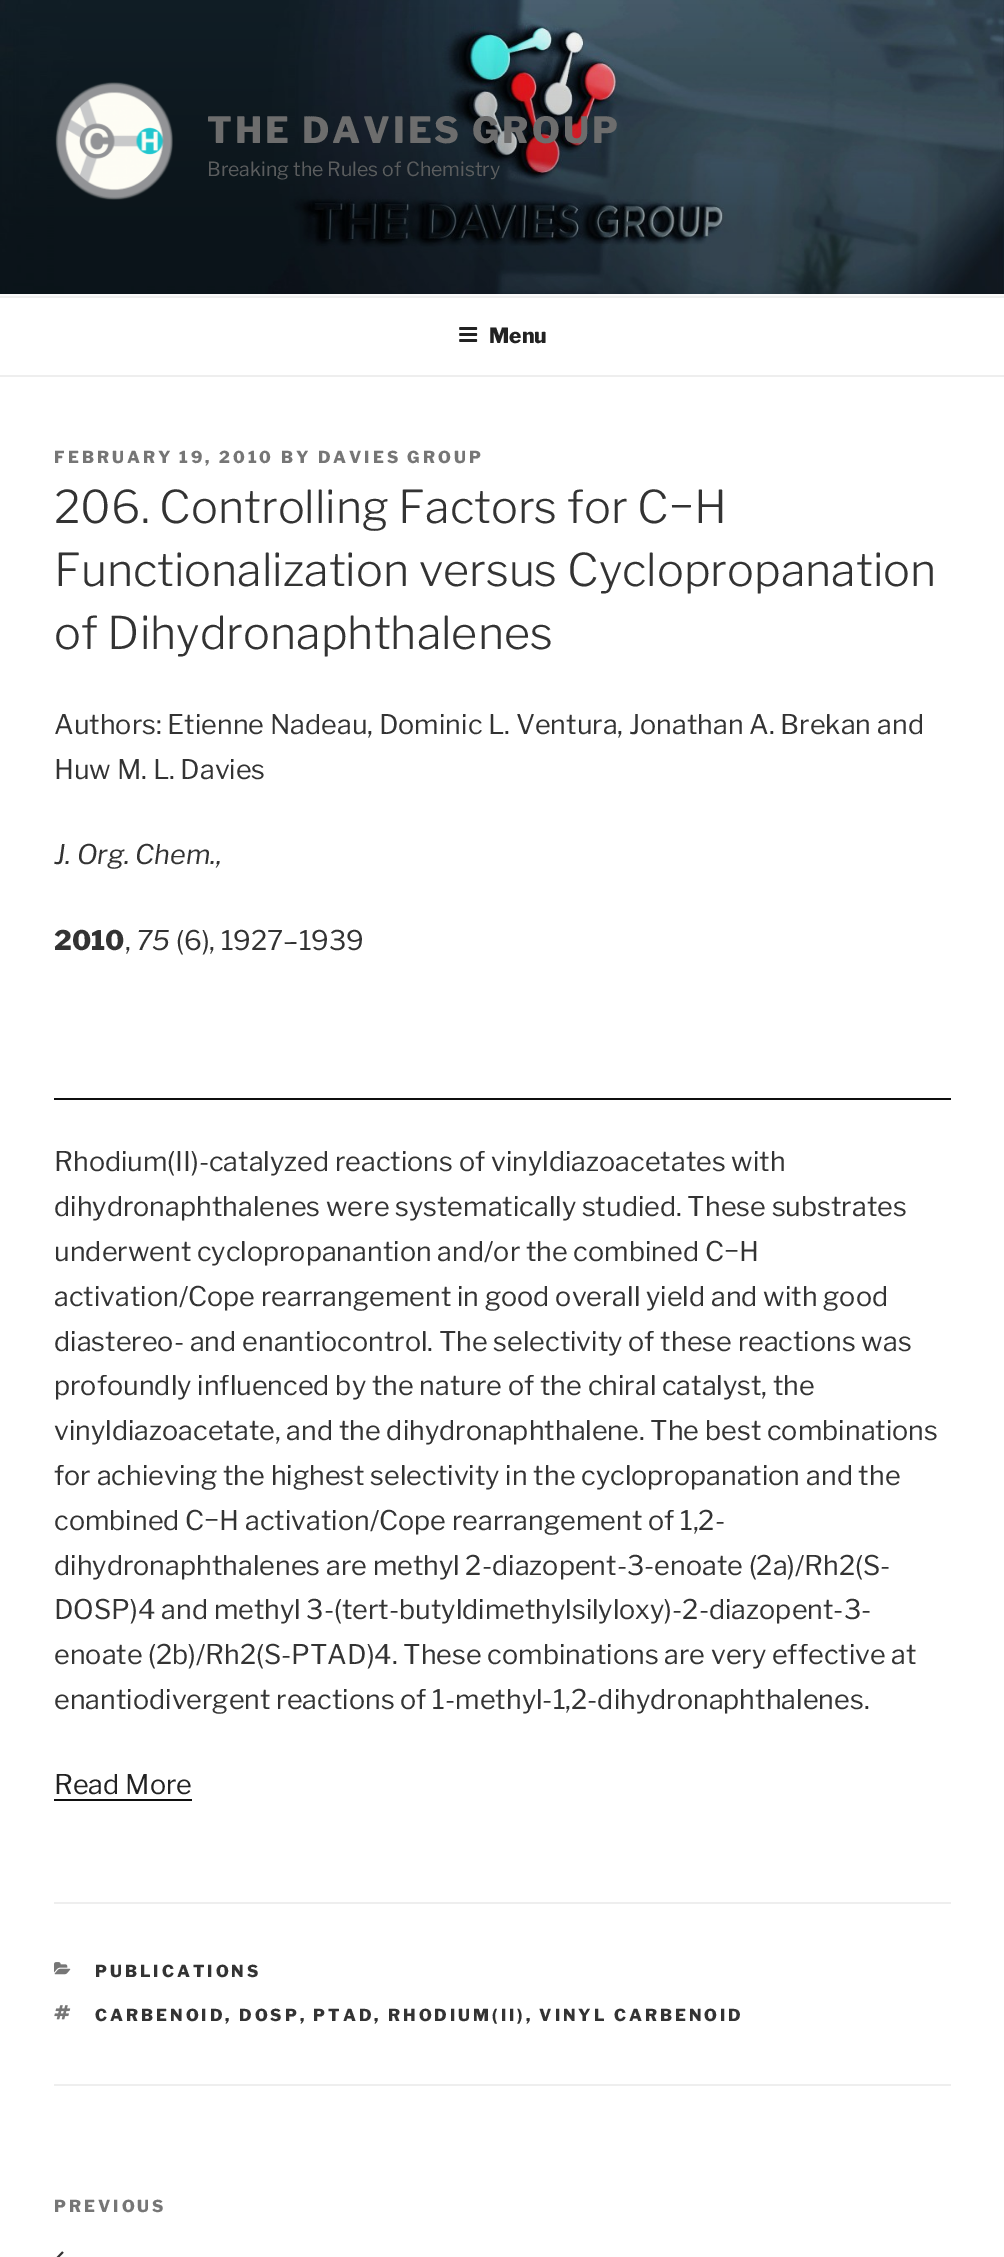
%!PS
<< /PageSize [1004 2257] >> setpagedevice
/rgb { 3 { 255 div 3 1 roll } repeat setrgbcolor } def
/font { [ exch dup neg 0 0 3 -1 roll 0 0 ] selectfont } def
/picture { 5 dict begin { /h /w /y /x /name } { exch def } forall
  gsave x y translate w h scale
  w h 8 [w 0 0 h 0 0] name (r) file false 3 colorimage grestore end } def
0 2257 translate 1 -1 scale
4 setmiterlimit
255 255 255 rgb
0 0 1004 2257 rectfill
250 250 250 rgb
0 294 1004 2 rectfill
(img/1.rgb) 0 0 1004 294 picture
(img/2.rgb) 55 82 118 118 picture
238 238 238 rgb
0 296 1004 2 rectfill
0 375 1004 2 rectfill
(img/3.rgb) 459 327 19 15 picture
[
  [54 1098 897 2 15 15 15]
  [54 1799 138 2 15 15 15]
  [54 1902 897 2 238 238 238]
  [54 2084 897 2 238 238 238]
] { aload pop rgb rectfill } forall
(img/4.rgb) 54 1962 17 13 picture
(img/5.rgb) 54 2005 17 15 picture
(img/6.rgb) 56 2251 8 6 picture
/LibreFranklin-Thin 36 font
109 109 109 rgb
207 143 moveto 2.9 0 (THE DAVIES GROUP) ashow
/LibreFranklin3-Thin 19.5 font
91 93 94 rgb
207 176 moveto (Breaking the Rules of Chemistry) show
/LibreFranklin-Thin 21 font
34 34 34 rgb
489 343 moveto (Menu) show
/LibreFranklin-Thin 16.5 font
118 118 118 rgb
54 463 moveto 3 0 (FEBRUARY 19, 2010 BY DAVIES GROUP) ashow
/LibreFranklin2-Thin 45 font
51 51 51 rgb
[
  [(206. Controlling Factors for C−H) 54 523]
  [(Functionalization versus Cyclopropanation) 54 586]
  [(of Dihydronaphthalenes) 54 649]
] { aload pop moveto show } forall
/LibreFranklin3-Thin 27 font
54 734 moveto (Authors: Etienne Nadeau, Dominic L. Ventura, Jonathan A. Brekan and) show
54 779 moveto (Huw M. L. Davies) show
/LibreFranklin-ThinItalic 27 font
54 864 moveto (J. Org. Chem.,) show
/LibreFranklin-Thin 27 font
54 950 moveto (2010) show
/LibreFranklin3-Thin 27 font
125 950 moveto (,) show
/LibreFranklin-ThinItalic 27 font
136 950 moveto (75) show
/LibreFranklin3-Thin 27 font
[
  [(\(6\), 1927–1939) 176 950]
  [(Rhodium\(II\)-catalyzed reactions of vinyldiazoacetates with) 54 1171]
  [(dihydronaphthalenes were systematically studied. These substrates) 54 1216]
  [(underwent cyclopropanantion and/or the combined C−H) 54 1261]
  [(activation/Cope rearrangement in good overall yield and with good) 54 1306]
  [(diastereo- and enantiocontrol. The selectivity of these reactions was) 54 1351]
  [(profoundly influenced by the nature of the chiral catalyst, the) 54 1395]
  [(vinyldiazoacetate, and the dihydronaphthalene. The best combinations) 54 1440]
  [(for achieving the highest selectivity in the cyclopropanation and the) 54 1485]
  [(combined C−H activation/Cope rearrangement of 1,2-) 54 1530]
  [(dihydronaphthalenes are methyl 2-diazopent-3-enoate \(2a\)/Rh2\(S-) 54 1575]
  [(DOSP\)4 and methyl 3-\(tert-butyldimethylsilyloxy\)-2-diazopent-3-) 54 1619]
  [(enoate \(2b\)/Rh2\(S-PTAD\)4. These combinations are very effective at) 54 1664]
  [(enantiodivergent reactions of 1-methyl-1,2-dihydronaphthalenes.) 54 1709]
] { aload pop moveto show } forall
34 34 34 rgb
54 1794 moveto (Read More) show
/LibreFranklin-Thin 16.5 font
51 51 51 rgb
95 1977 moveto 3 0 (PUBLICATIONS) ashow
95 2021 moveto 3 0 (CARBENOID, DOSP, PTAD, RHODIUM\(II\), VINYL CARBENOID) ashow
118 118 118 rgb
54 2212 moveto 3 0 (PREVIOUS) ashow
showpage
